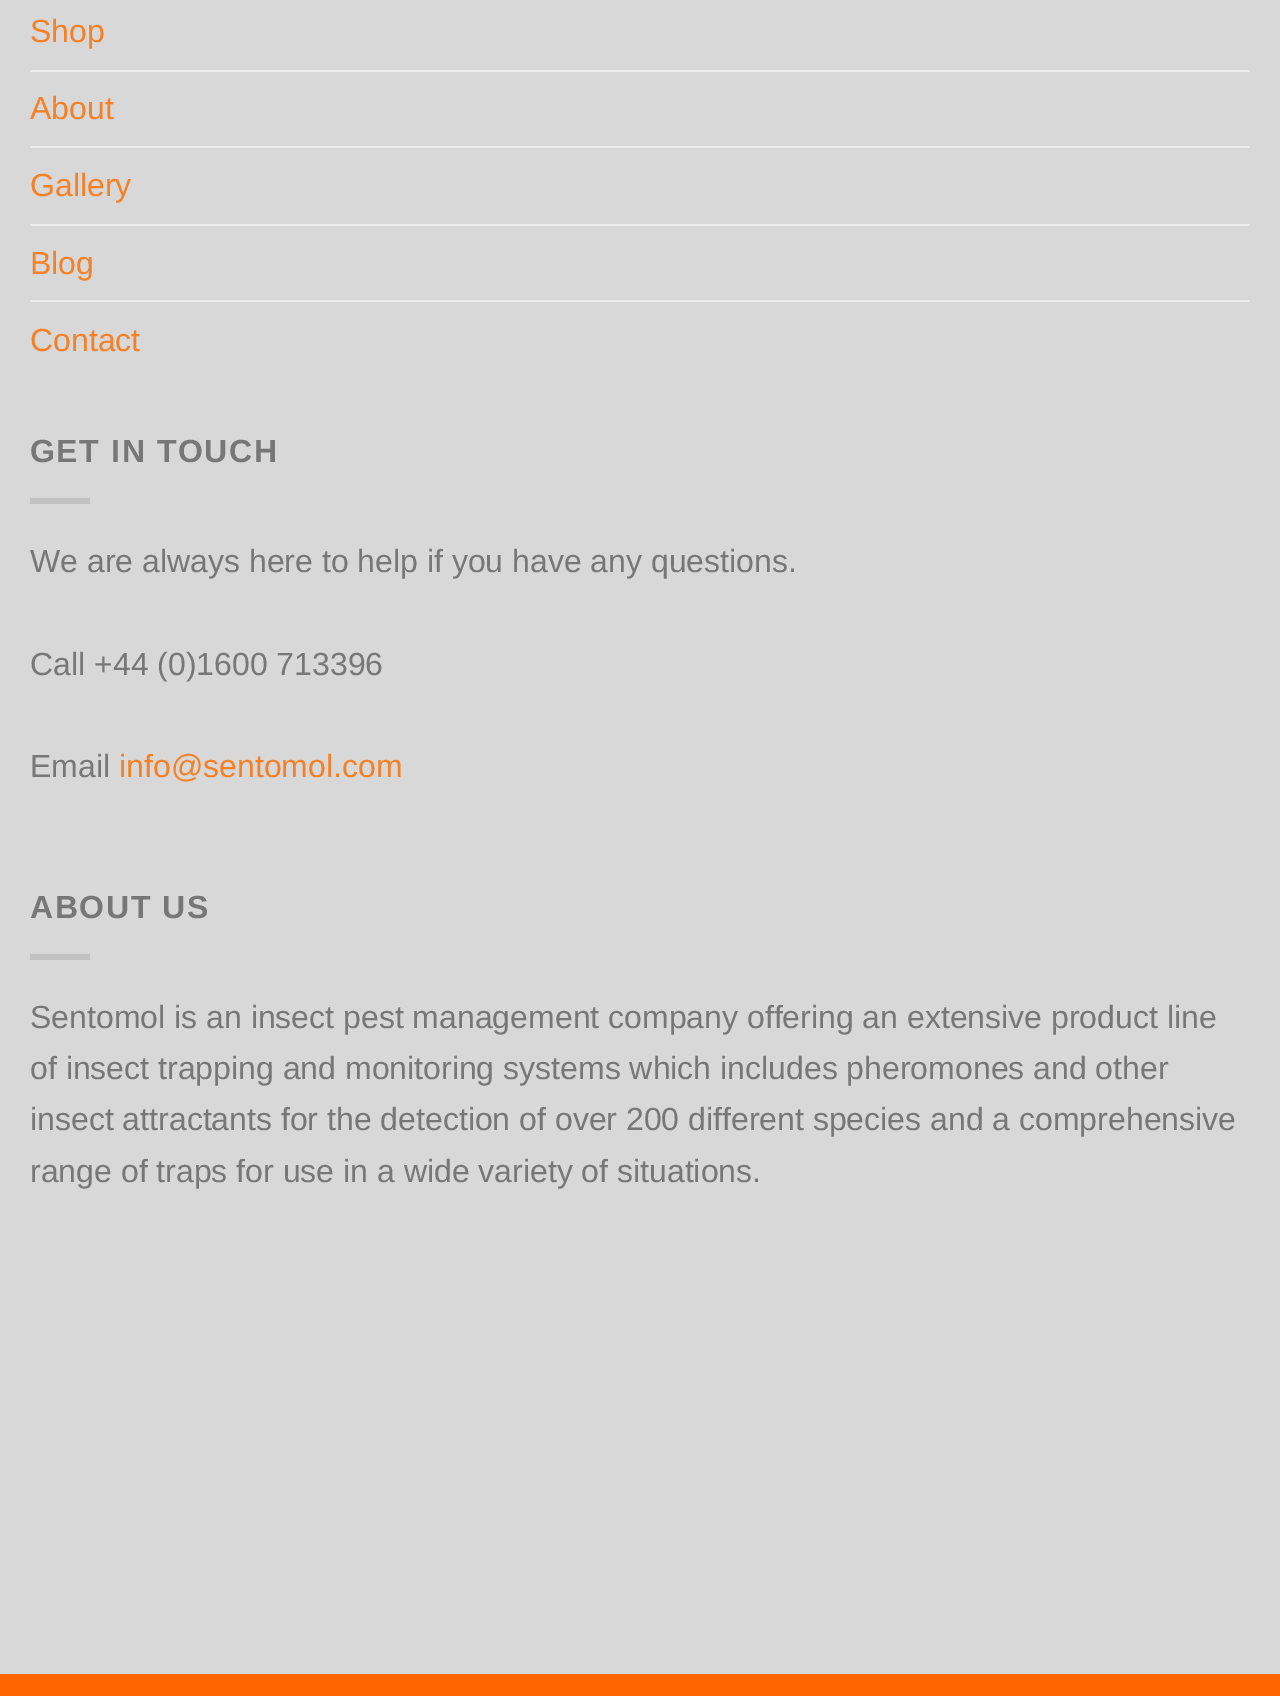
%!PS
<< /PageSize [1280 1696] >> setpagedevice
/rgb { 3 { 255 div 3 1 roll } repeat setrgbcolor } def
/font { [ exch dup neg 0 0 3 -1 roll 0 0 ] selectfont } def
0 1696 translate 1 -1 scale
4 setmiterlimit
216 216 216 rgb
0 0 1280 1696 rectfill
[
  [30 70 1220 2 236 236 236]
  [30 146 1220 2 236 236 236]
  [30 224 1220 2 236 236 236]
  [30 300 1220 2 236 236 236]
  [30 498 60 6 194 194 194]
  [30 954 60 6 194 194 194]
  [0 1674 1280 22 255 102 0]
] { aload pop rgb rectfill } forall
/LiberationSans-Regular 32 font
246 128 37 rgb
[
  [(Shop) 30 42]
  [(About) 30 119]
  [(Gallery) 30 196]
  [(Blog) 30 274]
  [(Contact) 30 351]
] { aload pop moveto show } forall
/LiberationSans-Bold 32 font
119 119 119 rgb
30 462 moveto 1.6 0 (GET IN TOUCH) ashow
/LiberationSans-Regular 32 font
[
  [(We are always here to help if you have any questions.) 30 572]
  [(Call +44 \(0\)1600 713396) 30 675]
  [(Email) 30 777]
] { aload pop moveto show } forall
246 128 37 rgb
119 777 moveto (info@sentomol.com) show
/LiberationSans-Bold 32 font
119 119 119 rgb
30 918 moveto 1.6 0 (ABOUT US) ashow
/LiberationSans-Regular 32 font
[
  [(Sentomol is an insect pest management company offering an extensive product line) 30 1028]
  [(of insect trapping and monitoring systems which includes pheromones and other) 30 1079]
  [(insect attractants for the detection of over 200 different species and a comprehensive) 30 1130]
  [(range of traps for use in a wide variety of situations.) 30 1182]
] { aload pop moveto show } forall
showpage
